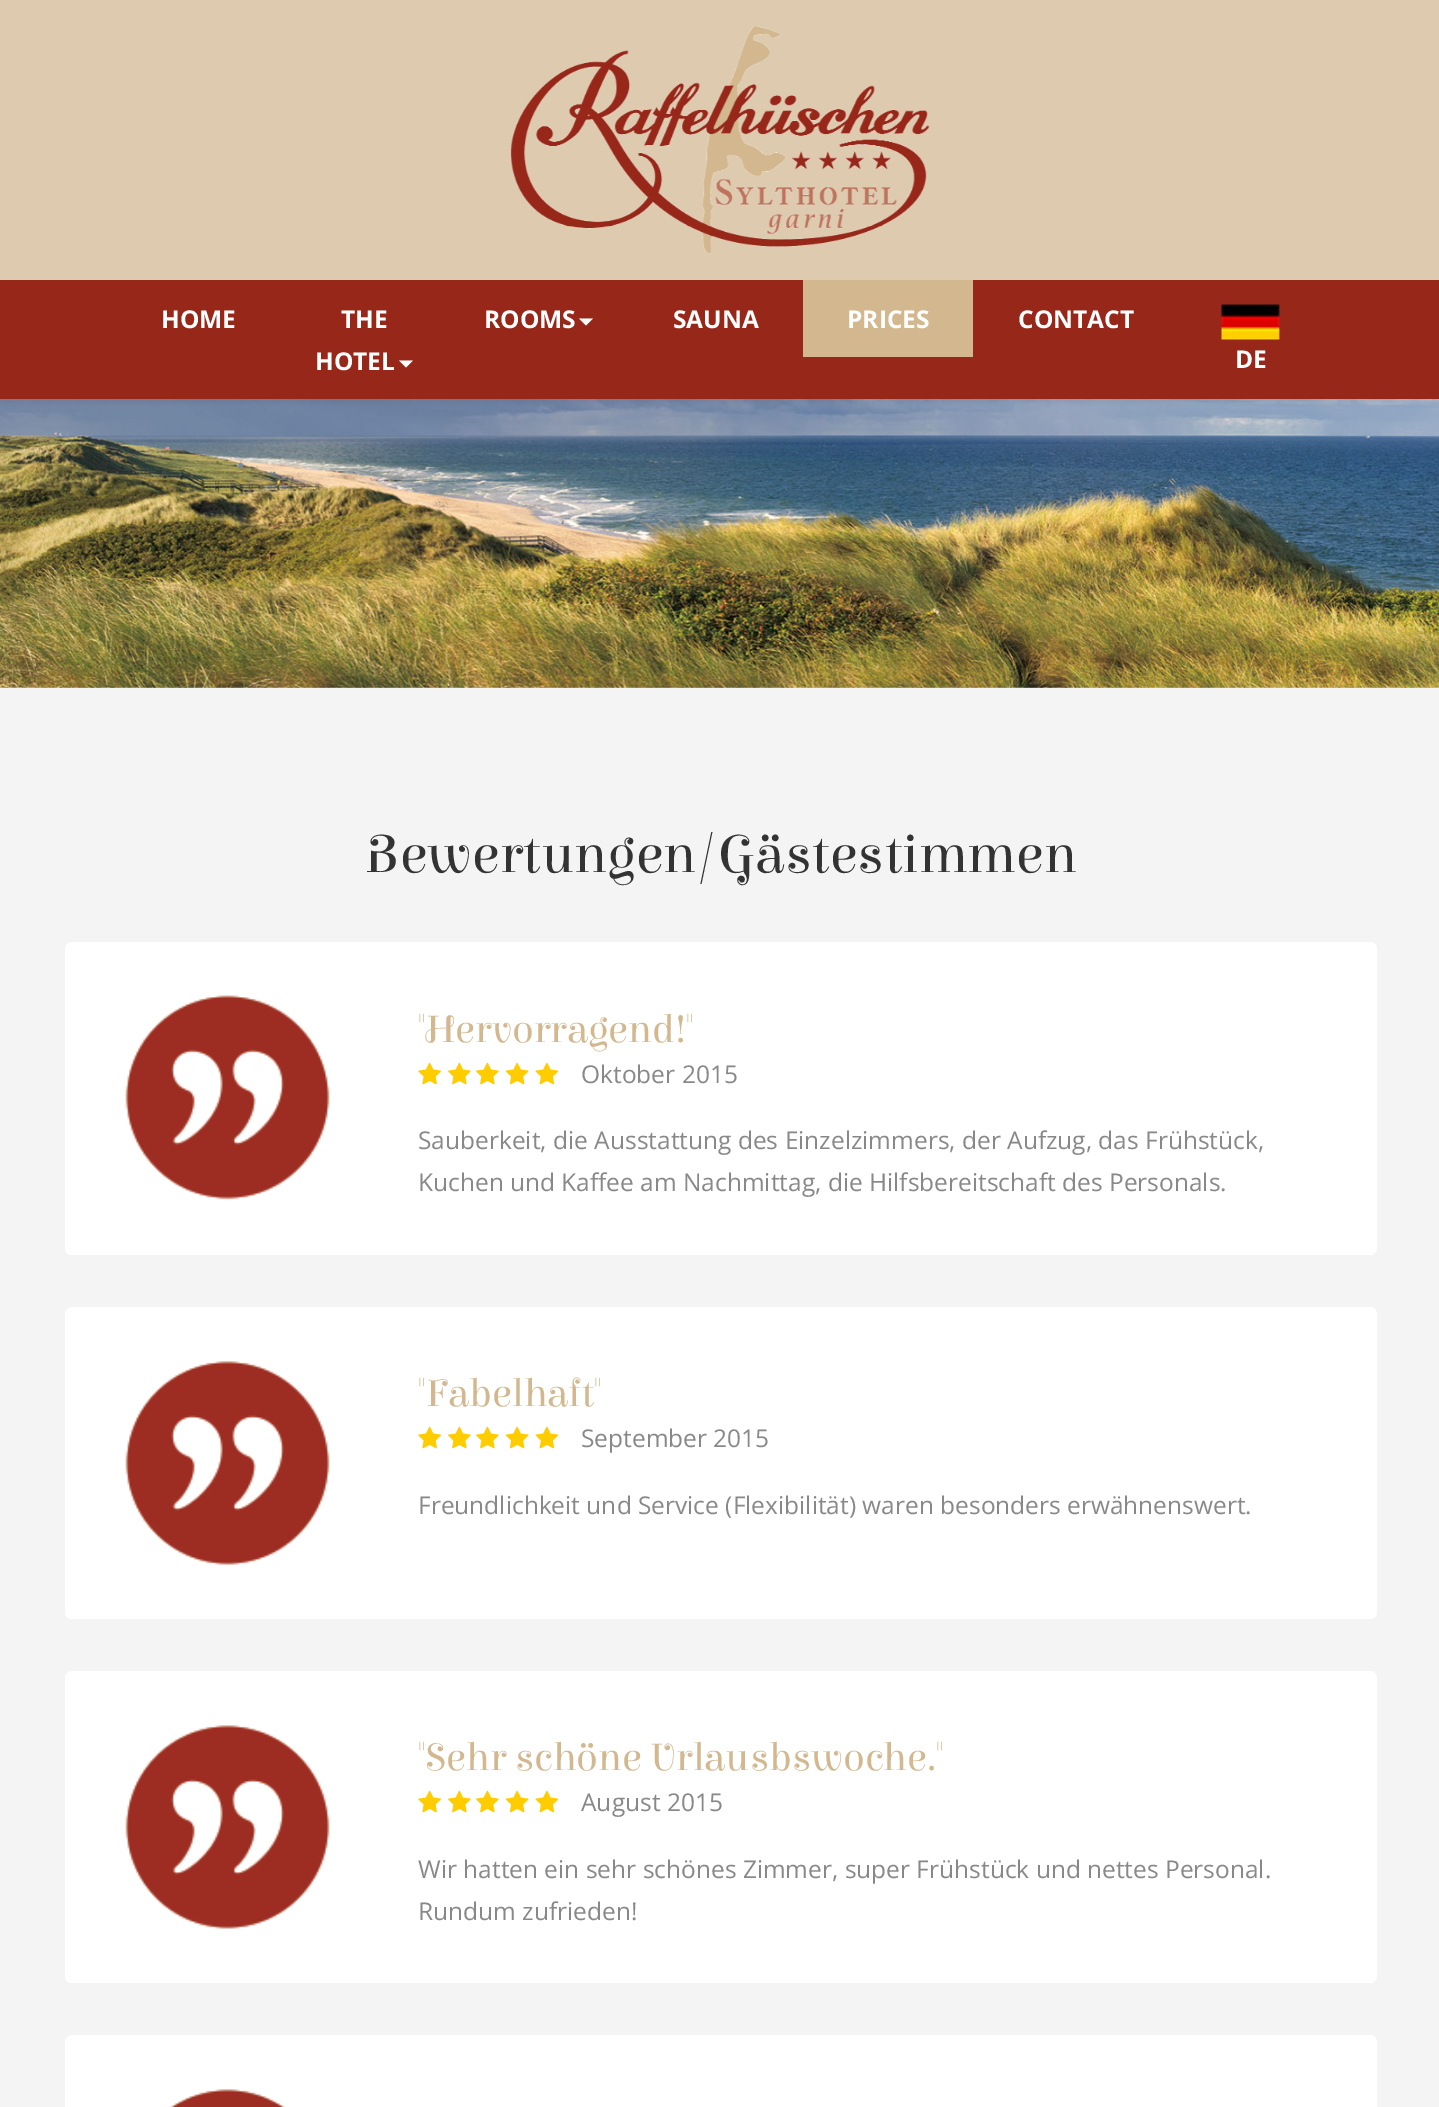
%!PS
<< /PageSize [1439 2107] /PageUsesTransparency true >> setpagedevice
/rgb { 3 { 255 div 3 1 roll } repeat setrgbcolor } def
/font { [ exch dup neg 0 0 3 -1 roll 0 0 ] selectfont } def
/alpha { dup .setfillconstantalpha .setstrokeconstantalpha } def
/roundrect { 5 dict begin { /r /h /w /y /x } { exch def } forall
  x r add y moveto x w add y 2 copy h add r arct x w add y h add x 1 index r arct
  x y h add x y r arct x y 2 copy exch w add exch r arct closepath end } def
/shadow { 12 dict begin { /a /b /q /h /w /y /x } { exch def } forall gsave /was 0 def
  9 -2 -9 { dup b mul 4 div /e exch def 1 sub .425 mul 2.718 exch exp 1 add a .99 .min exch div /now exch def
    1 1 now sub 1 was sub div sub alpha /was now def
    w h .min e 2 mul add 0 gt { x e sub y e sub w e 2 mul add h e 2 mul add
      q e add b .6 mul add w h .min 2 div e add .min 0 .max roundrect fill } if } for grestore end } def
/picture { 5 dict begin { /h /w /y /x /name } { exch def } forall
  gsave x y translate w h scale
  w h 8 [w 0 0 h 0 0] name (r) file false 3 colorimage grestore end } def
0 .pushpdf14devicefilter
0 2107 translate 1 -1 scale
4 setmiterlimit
255 255 255 rgb
0 0 1439 2107 rectfill
(img/3.rgb) 0 399 1439 289 picture
0 0 0 rgb
0 4 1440 399 0 2 0.05 shadow
151 39 25 rgb
0 280 1439 119 rectfill
222 203 175 rgb
0 0 1439 280 rectfill
(img/1.rgb) 510 26 420 228 picture
255 255 255 rgb
399 360.5 moveto 413 360.5 lineto 406 367.5 lineto closepath fill
579 318.5 moveto 593 318.5 lineto 586 325.5 lineto closepath fill
210 183 143 rgb
803 280 170 77 rectfill
(img/2.rgb) 1221 304 59 36 picture
244 244 244 rgb
0 688 1439 1419 rectfill
255 255 255 rgb
65 942 1312 313 7 roundrect fill
(img/4.rgb) 125 995 205 205 picture
(img/5.rgb) 418 1062 23 23 picture
(img/6.rgb) 448 1062 23 23 picture
(img/6.rgb) 476 1062 23 23 picture
(img/7.rgb) 505 1062 24 23 picture
(img/8.rgb) 535 1062 24 23 picture
65 1307 1312 312 7 roundrect fill
(img/9.rgb) 125 1361 205 204 picture
(img/5.rgb) 418 1426 23 23 picture
(img/6.rgb) 448 1426 23 23 picture
(img/6.rgb) 476 1426 23 23 picture
(img/7.rgb) 505 1426 24 23 picture
(img/8.rgb) 535 1426 24 23 picture
65 1671 1312 312 7 roundrect fill
(img/10.rgb) 125 1725 205 204 picture
(img/5.rgb) 418 1790 23 23 picture
(img/6.rgb) 448 1790 23 23 picture
(img/6.rgb) 476 1790 23 23 picture
(img/7.rgb) 505 1790 24 23 picture
(img/8.rgb) 535 1790 24 23 picture
65 2035 1312 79 7 roundrect fill
(img/11.rgb) 169 2089 117 18 picture
/OpenSans-Bold 24.5 font
[
  [(HOME) 161 328]
  [(THE) 341 328]
  [(HOTEL) 315 370]
  [(ROOMS) 484 328]
  [(SAUNA) 673 328]
  [(PRICES) 847 328]
  [(CONTACT) 1018 328]
  [(DE) 1235 368]
] { aload pop moveto show } forall
/ElsieSwashCaps-Regular 56 font
51 51 51 rgb
364 872 moveto (Bewertungen/Gästestimmen) show
/ElsieSwashCaps-Regular 40.25 font
210 183 143 rgb
418 1042 moveto ("Hervorragend!") show
/OpenSans-Regular 24.5 font
136 136 136 rgb
[
  [(Oktober 2015) 581 1083]
  [(Sauberkeit, die Ausstattung des Einzelzimmers, der Aufzug, das Frühstück,) 418 1149]
  [(Kuchen und Kaffee am Nachmittag, die Hilfsbereitschaft des Personals.) 418 1191]
] { aload pop moveto show } forall
/ElsieSwashCaps-Regular 40.25 font
210 183 143 rgb
418 1406 moveto ("Fabelhaft") show
/OpenSans-Regular 24.5 font
136 136 136 rgb
581 1447 moveto (September 2015) show
418 1514 moveto (Freundlichkeit und Service \(Flexibilität\) waren besonders erwähnenswert.) show
/ElsieSwashCaps-Regular 40.25 font
210 183 143 rgb
418 1770 moveto ("Sehr schöne Urlausbswoche.") show
/OpenSans-Regular 24.5 font
136 136 136 rgb
[
  [(August 2015) 581 1811]
  [(Wir hatten ein sehr schönes Zimmer, super Frühstück und nettes Personal.) 418 1878]
  [(Rundum zufrieden!) 418 1920]
] { aload pop moveto show } forall
.poppdf14devicefilter showpage
